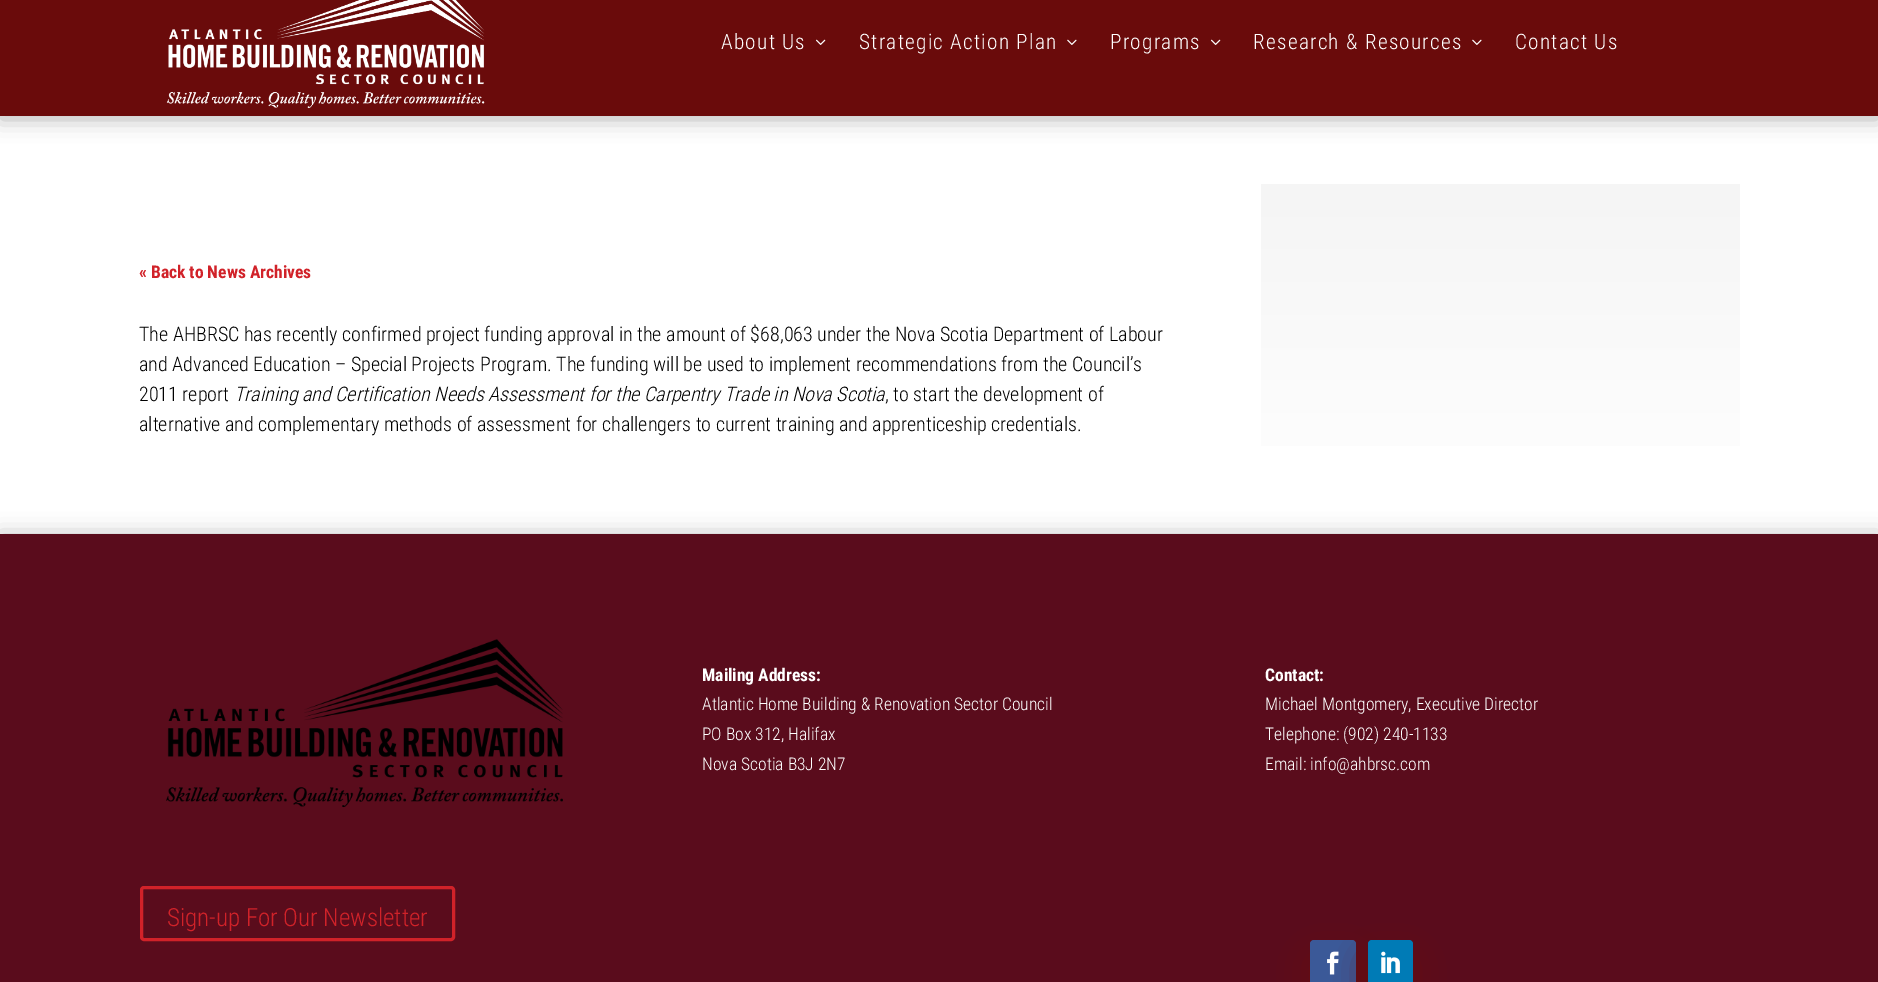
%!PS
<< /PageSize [1878 982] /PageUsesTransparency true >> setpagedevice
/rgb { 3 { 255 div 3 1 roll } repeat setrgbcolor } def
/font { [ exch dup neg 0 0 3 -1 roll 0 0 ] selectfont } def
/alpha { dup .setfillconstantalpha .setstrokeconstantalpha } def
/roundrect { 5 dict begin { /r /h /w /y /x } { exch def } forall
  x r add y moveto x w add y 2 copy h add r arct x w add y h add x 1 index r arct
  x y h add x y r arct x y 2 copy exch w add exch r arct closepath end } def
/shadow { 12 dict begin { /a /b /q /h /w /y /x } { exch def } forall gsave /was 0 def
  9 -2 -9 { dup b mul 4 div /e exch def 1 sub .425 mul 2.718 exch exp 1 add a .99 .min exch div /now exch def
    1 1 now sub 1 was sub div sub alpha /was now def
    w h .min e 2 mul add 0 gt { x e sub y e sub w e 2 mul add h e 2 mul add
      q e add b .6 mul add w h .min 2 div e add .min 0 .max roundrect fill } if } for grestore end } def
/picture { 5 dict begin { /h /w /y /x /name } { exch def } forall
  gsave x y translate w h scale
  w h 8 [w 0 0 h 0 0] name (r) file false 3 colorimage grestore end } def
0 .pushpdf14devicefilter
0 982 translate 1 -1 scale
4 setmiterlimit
255 255 255 rgb
0 0 1878 982 rectfill
0 0 0 rgb
0 -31 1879 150 0 11 0.3 shadow
106 11 11 rgb
0 0 1878 116 rectfill
(img/1.rgb) 166 0 319 109 picture
(img/2.rgb) 816 39 10 6 picture
(img/3.rgb) 1067 39 10 6 picture
(img/2.rgb) 1211 39 10 6 picture
(img/3.rgb) 1472 39 10 6 picture
gsave 1261 184 moveto 1740 184 lineto 1740 446 lineto 1261 446 lineto closepath clip newpath
<< /ShadingType 2 /ColorSpace /DeviceRGB /Coords [1501 534 1501 184] /Extend [true true] /Function << /FunctionType 2 /Domain [0 1] /C0 [1 1 1] /C1 [0.961 0.961 0.961] /N 1 >> >> shfill grestore
0 0 0 rgb
0 536 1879 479 0 11 0.3 shadow
90 12 28 rgb
0 534 1878 448 rectfill
(img/4.rgb) 166 639 397 169 picture
209 34 41 rgb
3 setlinewidth
141.5 887.5 312 52 2.5 roundrect stroke
106 11 11 rgb
1313 960 40 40 1 16.5 1 shadow
59 89 152 rgb
1310 940 46 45 4 roundrect fill
106 11 11 rgb
1370 960 40 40 1 16.5 1 shadow
(img/5.rgb) 1327 951 12 24 picture
0 123 182 rgb
1368 940 45 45 4 roundrect fill
(img/6.rgb) 1381 951 19 23 picture
/RobotoCondensed-Light 21.25 font
255 255 255 rgb
721 49 moveto 1.25 0 (About Us) ashow
859 49 moveto 1.25 0 (Strategic Action Plan) ashow
1110 49 moveto 1.25 0 (Programs) ashow
1253 49 moveto 1.25 0 (Research & Resources) ashow
1515 49 moveto 1.25 0 (Contact Us) ashow
/RobotoCondensed-Bold 17.5 font
209 34 41 rgb
139 278 moveto (« Back to News Archives) show
/RobotoCondensed-Light 20 font
0 0 0 rgb
[
  [(The AHBRSC has recently confirmed project funding approval in the amount of $68,063 under the Nova Scotia Department of Labour) 139 341]
  [(and Advanced Education – Special Projects Program. The funding will be used to implement recommendations from the Council’s) 139 371]
  [(2011 report) 139 401]
] { aload pop moveto show } forall
/RobotoCondensed-LightItalic 20 font
234 401 moveto (Training and Certification Needs Assessment for the Carpentry Trade in Nova Scotia) show
/RobotoCondensed-Light 20 font
885 401 moveto (, to start the development of) show
139 431 moveto (alternative and complementary methods of assessment for challengers to current training and apprenticeship credentials.) show
/RobotoCondensed-Bold 17.5 font
255 255 255 rgb
702 681 moveto (Mailing Address:) show
/RobotoCondensed-Light 17.5 font
[
  [(Atlantic Home Building & Renovation Sector Council) 702 710]
  [(PO Box 312, Halifax) 702 740]
  [(Nova Scotia B3J 2N7) 702 770]
] { aload pop moveto show } forall
/RobotoCondensed-Bold 17.5 font
1265 681 moveto (Contact:) show
/RobotoCondensed-Light 17.5 font
[
  [(Michael Montgomery, Executive Director) 1265 710]
  [(Telephone: \(902\) 240-1133) 1265 740]
  [(Email: info@ahbrsc.com) 1265 770]
] { aload pop moveto show } forall
/RobotoCondensed-Light 25 font
209 34 41 rgb
167 926 moveto (Sign-up For Our Newsletter) show
.poppdf14devicefilter showpage
